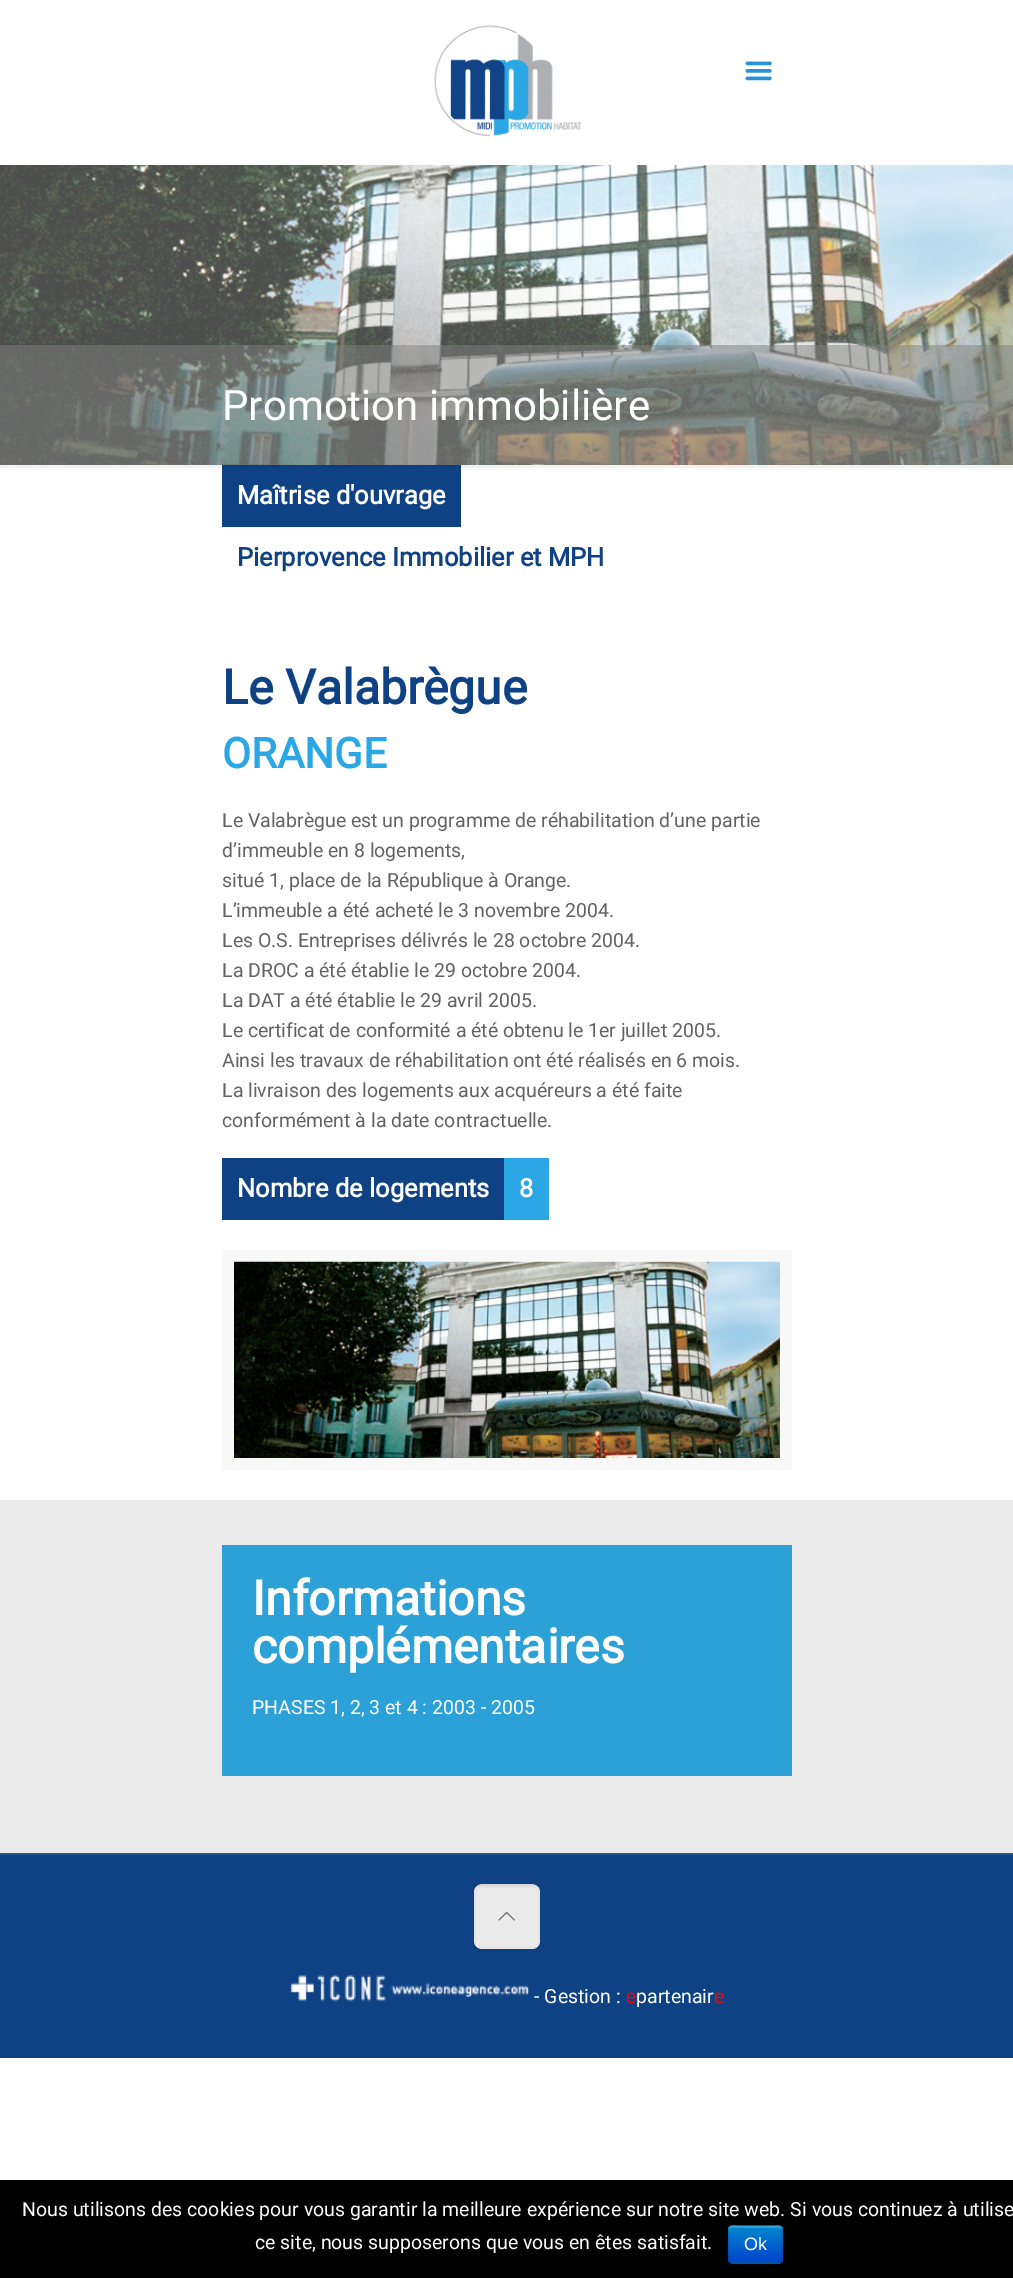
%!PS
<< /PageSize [1013 2278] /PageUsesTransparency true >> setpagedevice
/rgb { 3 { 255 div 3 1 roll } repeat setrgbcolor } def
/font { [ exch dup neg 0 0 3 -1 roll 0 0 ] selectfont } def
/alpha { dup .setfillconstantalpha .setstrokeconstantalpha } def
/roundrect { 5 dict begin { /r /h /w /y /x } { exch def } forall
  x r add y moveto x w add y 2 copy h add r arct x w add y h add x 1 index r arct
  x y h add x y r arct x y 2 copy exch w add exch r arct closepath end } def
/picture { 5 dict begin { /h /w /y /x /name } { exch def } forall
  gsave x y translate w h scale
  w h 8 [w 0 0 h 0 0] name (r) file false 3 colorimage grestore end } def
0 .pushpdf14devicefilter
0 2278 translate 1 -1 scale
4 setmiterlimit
255 255 255 rgb
0 0 1013 2278 rectfill
242 242 242 rgb
0 465 1013 3 rectfill
(img/1.rgb) 434 25 148 112 picture
(img/2.rgb) 745 61 27 20 picture
(img/3.rgb) 0 165 1013 300 picture
0.5 alpha
[
  [0 345 1013 120 128 128 128]
] { aload pop rgb rectfill } forall
1 alpha
[
  [222 468 239 59 15 66 132]
  [222 465 239 3 14 63 125]
  [222 1158 282 62 15 66 132]
  [504 1158 45 62 44 167 230]
] { aload pop rgb rectfill } forall
248 248 248 rgb
12 setlinewidth
228 1256 558 208 rectstroke
(img/4.rgb) 234 1261 546 197 picture
[
  [0 1500 1013 353 235 235 235]
  [222 1545 570 231 44 161 215]
  [0 1855 1013 203 15 66 132]
  [0 1853 1013 2 39 85 144]
] { aload pop rgb rectfill } forall
247 247 247 rgb
474 1884 66 65 8 roundrect fill
(img/5.rgb) 476 1884 62 4 picture
0.03 alpha
0 0 0 rgb
2 setlinewidth
475 1885 64 63 rectstroke
0.05 alpha
474 1884 66 65 rectfill
1 alpha
(img/6.rgb) 498 1911 17 10 picture
(img/7.rgb) 290 1975 239 27 picture
0 2180 1013 98 rectfill
0 109 204 rgb
728 2225 55 39 5 roundrect fill
gsave
728 2225 55 39 5 roundrect clip newpath
gsave 728 2226 moveto 783 2226 lineto 783 2262 lineto 728 2262 lineto closepath clip newpath
<< /ShadingType 2 /ColorSpace /DeviceRGB /Coords [755 2226 755 2262] /Extend [true true] /Function << /FunctionType 2 /Domain [0 1] /C0 [0 0.533 0.8] /C1 [0 0.267 0.8] /N 1 >> >> shfill grestore
grestore
0.2 alpha
255 255 255 rgb
732 2228 moveto 778 2228 lineto 780 2228 782 2229 782 2230 curveto 782 2224 776 2226 771 2226 curveto 740 2226 lineto 735 2226 729 2224 729 2230 curveto 729 2229 730 2228 732 2228 curveto closepath fill
0.25 alpha
0 0 0 rgb
1.5 setlinewidth
781 2261.5 moveto 780.5 2262.5 779.5 2263 778.5 2263 curveto 732 2263 lineto 731 2263 730 2262.5 729.5 2261.5 curveto stroke
0.1 alpha
729.5 2261.5 moveto 728.5 2261 728 2260 728 2259 curveto 728 2229 lineto 728 2228 728.5 2227 729.5 2226.5 curveto 730 2225.5 731 2225 732 2225 curveto 778.5 2225 lineto 779.5 2225 780.5 2225.5 781 2226.5 curveto 782 2227 782 2228 782 2229 curveto 782 2259 lineto 782 2260 782 2261 781 2261.5 curveto stroke
/Roboto-Regular 42 font
1 alpha
255 255 255 rgb
222 420 moveto (Promotion immobilière) show
/Roboto-Bold 25.5 font
237 504 moveto (Maîtrise d'ouvrage) show
15 66 132 rgb
237 566 moveto (Pierprovence Immobilier et MPH) show
/Roboto-Bold 48 font
222 704 moveto (Le Valabrègue) show
/Roboto-Bold 42 font
44 167 230 rgb
222 768 moveto (ORANGE) show
/Roboto-Regular 19.5 font
98 98 98 rgb
[
  [(Le Valabrègue est un programme de réhabilitation d’une partie) 222 827]
  [(d’immeuble en 8 logements,) 222 857]
  [(situé 1, place de la République à Orange.) 222 887]
  [(L’immeuble a été acheté le 3 novembre 2004.) 222 917]
  [(Les O.S. Entreprises délivrés le 28 octobre 2004.) 222 947]
  [(La DROC a été établie le 29 octobre 2004.) 222 977]
  [(La DAT a été établie le 29 avril 2005.) 222 1007]
  [(Le certificat de conformité a été obtenu le 1er juillet 2005.) 222 1037]
  [(Ainsi les travaux de réhabilitation ont été réalisés en 6 mois.) 222 1067]
  [(La livraison des logements aux acquéreurs a été faite) 222 1097]
  [(conformément à la date contractuelle.) 222 1127]
] { aload pop moveto show } forall
/Roboto-Bold 25.5 font
255 255 255 rgb
237 1197 moveto (Nombre de logements) show
519 1197 moveto (8) show
/Roboto-Bold 48 font
252 1615 moveto (Informations) show
252 1663 moveto (complémentaires) show
/Roboto-Regular 19.5 font
252 1714 moveto (PHASES 1, 2, 3 et 4 : 2003 - 2005) show
534 2003 moveto (- Gestion :) show
255 0 0 rgb
626 2003 moveto (e) show
255 255 255 rgb
636 2003 moveto (partenair) show
255 0 0 rgb
714 2003 moveto (e) show
255 255 255 rgb
22 2216 moveto (Nous utilisons des cookies pour vous garantir la meilleure expérience sur notre site web. Si vous continuez à utilise) show
255 2249 moveto (ce site, nous supposerons que vous en êtes satisfait.) show
/LiberationSans-Regular 18 font
744 2250 moveto (Ok) show
.poppdf14devicefilter showpage
